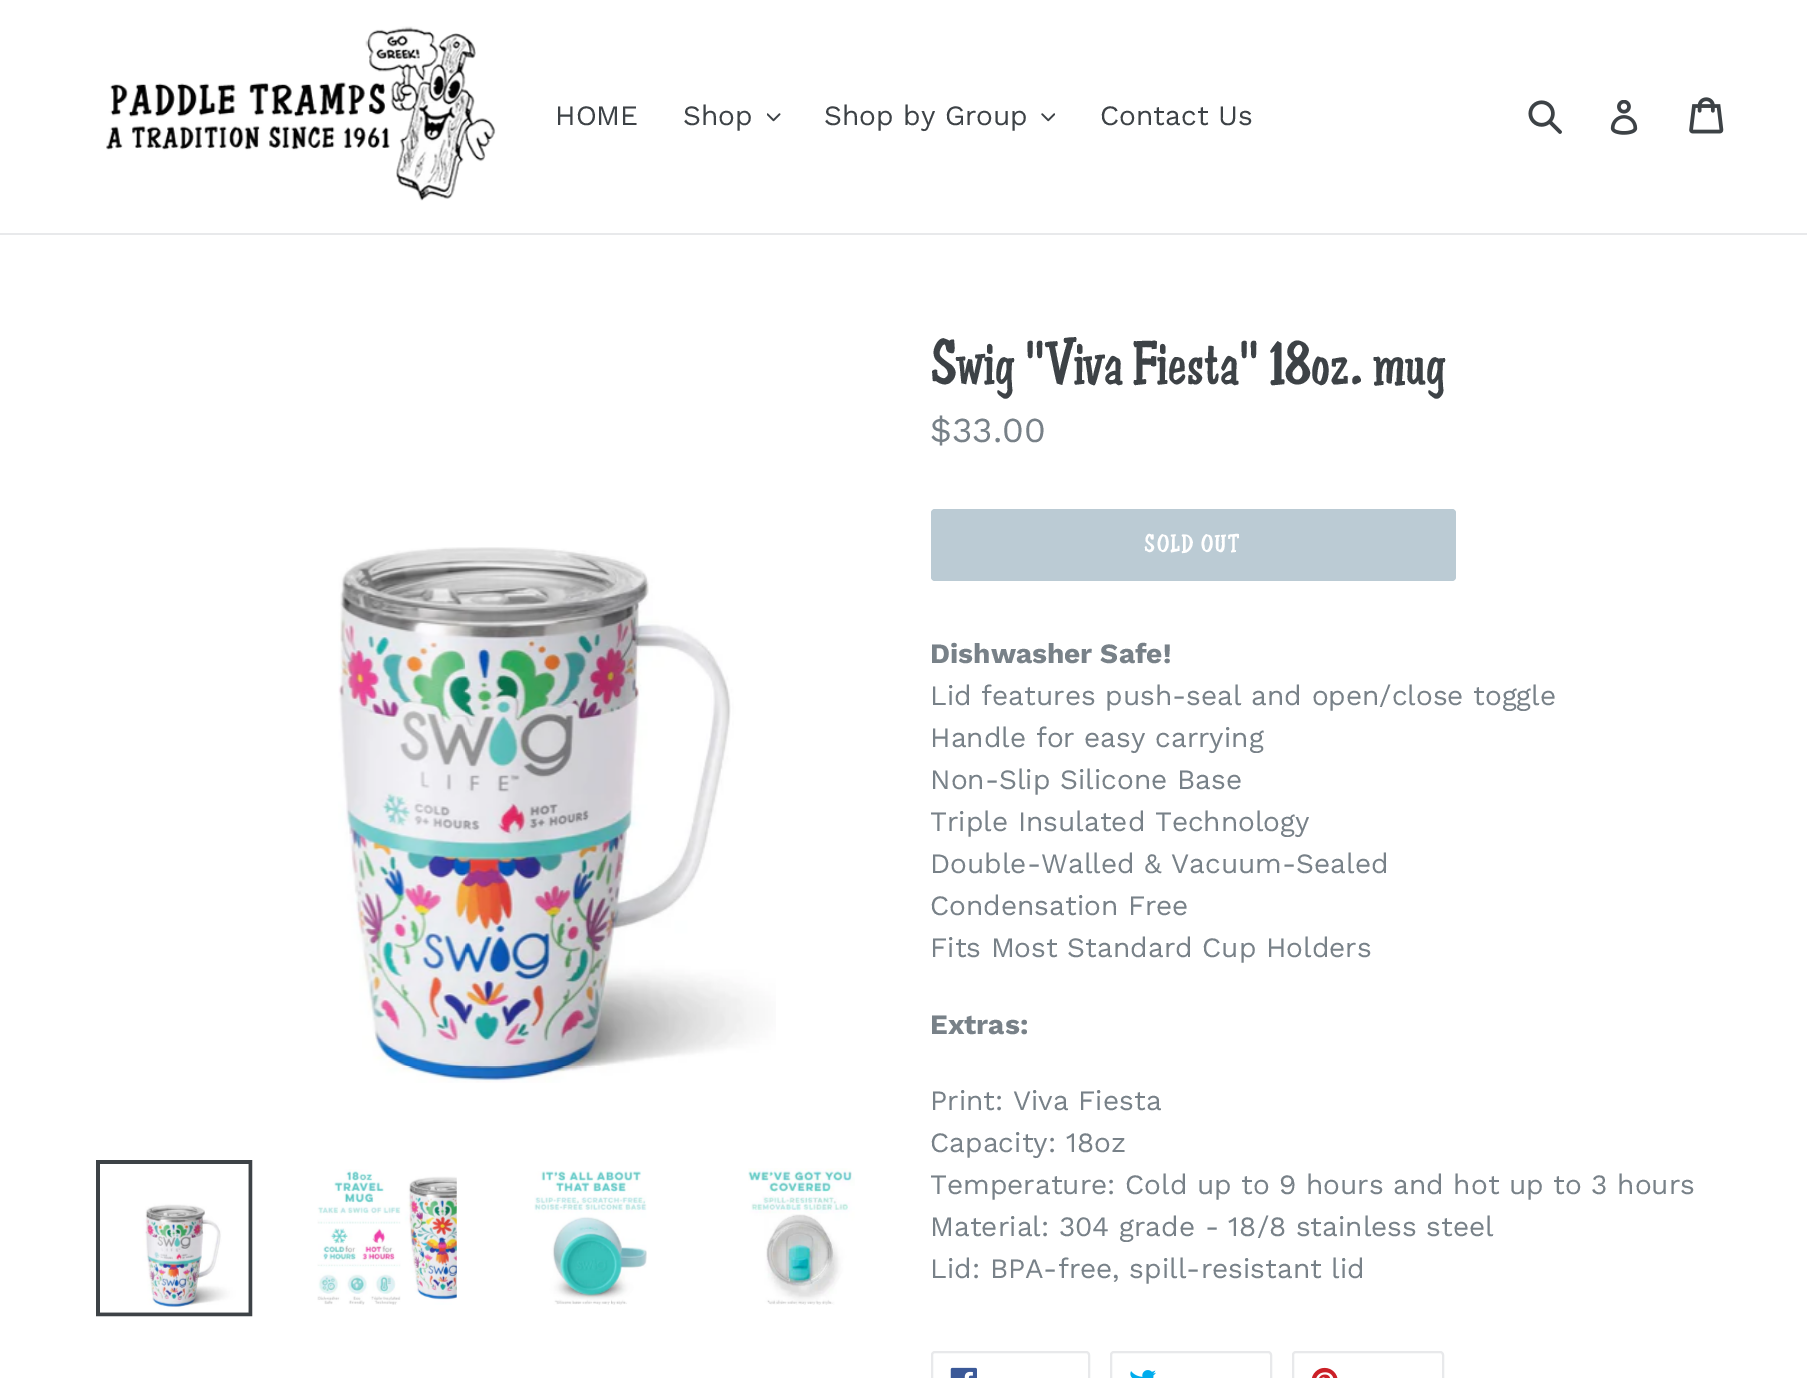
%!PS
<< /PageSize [1807 1378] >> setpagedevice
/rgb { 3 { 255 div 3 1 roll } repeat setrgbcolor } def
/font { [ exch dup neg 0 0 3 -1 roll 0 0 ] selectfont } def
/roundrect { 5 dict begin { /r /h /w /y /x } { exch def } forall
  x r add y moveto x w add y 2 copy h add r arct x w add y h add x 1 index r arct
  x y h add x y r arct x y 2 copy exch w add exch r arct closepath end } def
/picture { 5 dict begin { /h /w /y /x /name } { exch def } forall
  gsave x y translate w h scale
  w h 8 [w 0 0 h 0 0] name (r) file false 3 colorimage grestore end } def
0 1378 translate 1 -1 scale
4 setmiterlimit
255 255 255 rgb
0 0 1807 1378 rectfill
232 233 235 rgb
0 233 1807 2 rectfill
(img/1.rgb) 106 26 390 175 picture
(img/2.rgb) 767 113 14 9 picture
(img/3.rgb) 1041 113 14 9 picture
(img/4.rgb) 1528 100 34 34 picture
(img/5.rgb) 1610 100 28 35 picture
(img/6.rgb) 1689 97 35 37 picture
(img/7.rgb) 338 547 438 536 picture
61 66 70 rgb
4 setlinewidth
98 1162 152 152 rectstroke
(img/8.rgb) 100 1164 149 149 picture
(img/9.rgb) 317 1169 140 136 picture
(img/10.rgb) 534 1171 113 134 picture
(img/11.rgb) 748 1168 107 137 picture
187 203 212 rgb
931 509 525 72 4 roundrect fill
232 233 235 rgb
2 setlinewidth
932 1352 157 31 3 roundrect stroke
(img/12.rgb) 950 1367 27 11 picture
1111 1352 160 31 3 roundrect stroke
(img/13.rgb) 1130 1370 26 8 picture
1293 1352 150 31 3 roundrect stroke
(img/14.rgb) 1312 1367 26 11 picture
/WorkSans-Regular 28 font
61 66 70 rgb
[
  [(HOME) 555 125]
  [(Shop) 683 125]
  [(Shop by Group) 824 125]
  [(Contact Us) 1100 125]
] { aload pop moveto show } forall
/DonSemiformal-Regular 61.25 font
930 384 moveto (Swig "Viva Fiesta" 18oz. mug) show
/WorkSans-Regular 35 font
120 129 136 rgb
930 442 moveto ($33.00) show
/DonSemiformal-Regular 24.5 font
255 255 255 rgb
1144 552 moveto 2 0 (SOLD OUT) ashow
/WorkSans-Bold 28 font
120 129 136 rgb
930 663 moveto (Dishwasher Safe!) show
/WorkSans-Regular 28 font
[
  [(Lid features push-seal and open/close toggle) 930 705]
  [(Handle for easy carrying) 930 747]
  [(Non-Slip Silicone Base) 930 789]
  [(Triple Insulated Technology) 930 831]
  [(Double-Walled & Vacuum-Sealed) 930 873]
  [(Condensation Free) 930 915]
  [(Fits Most Standard Cup Holders) 930 957]
] { aload pop moveto show } forall
/WorkSans-Bold 28 font
930 1034 moveto (Extras:) show
/WorkSans-Regular 28 font
[
  [(Print: Viva Fiesta) 930 1110]
  [(Capacity: 18oz) 930 1152]
  [(Temperature: Cold up to 9 hours and hot up to 3 hours) 930 1194]
  [(Material: 304 grade - 18/8 stainless steel) 930 1236]
  [(Lid: BPA-free, spill-resistant lid) 930 1278]
] { aload pop moveto show } forall
showpage
